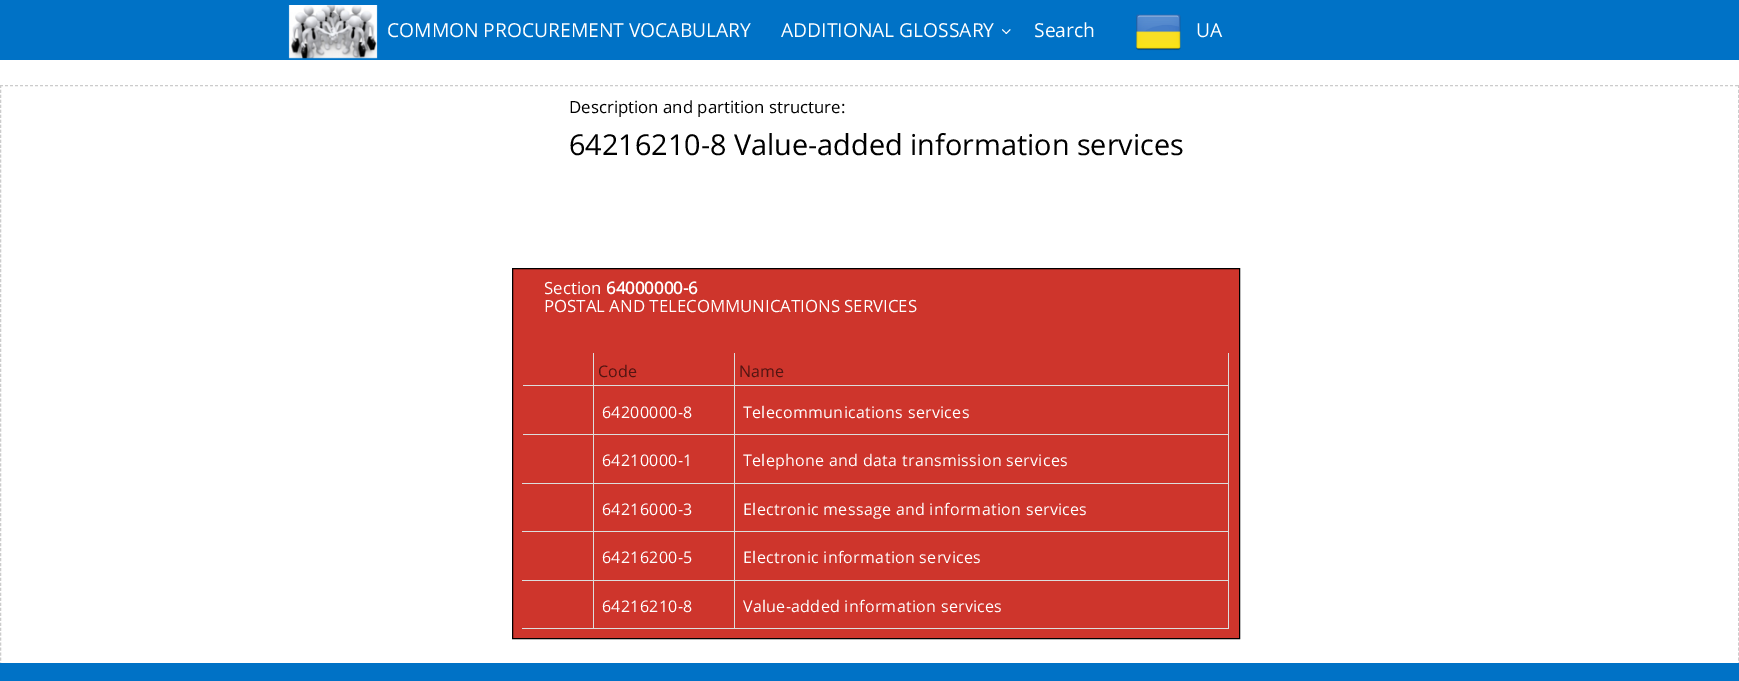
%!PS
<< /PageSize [1739 681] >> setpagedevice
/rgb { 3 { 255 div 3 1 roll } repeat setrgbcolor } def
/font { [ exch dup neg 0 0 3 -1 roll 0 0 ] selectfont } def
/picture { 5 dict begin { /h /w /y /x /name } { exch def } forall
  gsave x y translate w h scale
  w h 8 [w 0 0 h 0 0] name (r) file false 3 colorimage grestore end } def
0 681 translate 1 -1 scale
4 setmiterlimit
255 255 255 rgb
0 0 1739 681 rectfill
0 114 198 rgb
0 0 1739 60 rectfill
(img/1.rgb) 288 5 90 54 picture
255 255 255 rgb
1005.5 33.5 moveto 1010 29 lineto 1010.5 30 lineto 1006.5 34 lineto closepath fill
1002 30 moveto 1002.5 29 lineto 1007 33.5 lineto 1006.5 34 lineto closepath fill
(img/2.rgb) 1136 14 45 37 picture
204 204 204 rgb
[3 2] 0 setdash
0 85.5 moveto 1739 85.5 lineto stroke
[3 1.98] 0 setdash
1738.5 85 moveto 1738.5 671 lineto stroke
0.5 85 moveto 0.5 671 lineto stroke
206 53 44 rgb
512.5 268.5 moveto 1239.5 268.5 lineto 1239.5 638.5 lineto 512.5 638.5 lineto closepath gsave fill grestore
0 0 0 rgb
[] 0 setdash
stroke
[
  [1228 353 1 82 221 221 221]
  [734 434 495 1 221 221 221]
  [734 385 1 50 221 221 221]
  [734 385 495 1 221 221 221]
  [734 353 1 33 221 221 221]
  [593 434 142 1 221 221 221]
  [593 385 1 50 221 221 221]
  [593 385 142 1 221 221 221]
  [593 353 1 33 221 221 221]
  [523 385 71 1 221 221 221]
  [523 434 71 1 221 221 221]
  [1228 434 1 50 221 221 221]
  [734 483 495 1 221 221 221]
  [734 434 1 50 221 221 221]
  [593 483 142 1 221 221 221]
  [593 434 1 50 221 221 221]
  [522 483 72 1 221 221 221]
  [1228 483 1 49 221 221 221]
  [734 531 495 1 221 221 221]
  [734 483 1 49 221 221 221]
  [593 531 142 1 221 221 221]
  [593 483 1 49 221 221 221]
  [522 531 72 1 221 221 221]
  [1228 531 1 50 221 221 221]
  [734 580 495 1 221 221 221]
  [734 531 1 50 221 221 221]
  [593 580 142 1 221 221 221]
  [593 531 1 50 221 221 221]
  [522 580 72 1 221 221 221]
  [1228 580 1 49 221 221 221]
  [734 628 495 1 221 221 221]
  [734 580 1 49 221 221 221]
  [593 628 142 1 221 221 221]
  [593 580 1 49 221 221 221]
  [522 628 72 1 221 221 221]
  [0 663 1739 18 0 114 198]
] { aload pop rgb rectfill } forall
/OpenSans-Regular 19.25 font
255 255 255 rgb
[
  [(COMMON PROCUREMENT VOCABULARY) 387 37]
  [(ADDITIONAL GLOSSARY) 781 37]
  [(Search) 1034 37]
  [(UA) 1196 37]
] { aload pop moveto show } forall
/OpenSans-Regular 16.8 font
0 0 0 rgb
569 113 moveto (Description and partition structure:) show
/OpenSans-Regular 28.8 font
569 155 moveto (64216210-8 Value-added information services) show
/OpenSans-Regular 16.8 font
255 255 255 rgb
544 294 moveto (Section) show
/OpenSans-Bold 16.8 font
606 294 moveto (64000000-6) show
/OpenSans-Regular 16.8 font
544 312 moveto (POSTAL AND TELECOMMUNICATIONS SERVICES) show
/OpenSans-Regular 16 font
82 21 18 rgb
598 377 moveto (Code) show
739 377 moveto (Name) show
255 255 255 rgb
602 418 moveto 0.3 0 (64200000-8) ashow
743 418 moveto 0.3 0 (Telecommunications services) ashow
602 466 moveto 0.3 0 (64210000-1) ashow
743 466 moveto 0.3 0 (Telephone and data transmission services) ashow
602 515 moveto 0.3 0 (64216000-3) ashow
743 515 moveto 0.3 0 (Electronic message and information services) ashow
602 563 moveto 0.3 0 (64216200-5) ashow
743 563 moveto 0.3 0 (Electronic information services) ashow
602 612 moveto 0.3 0 (64216210-8) ashow
743 612 moveto 0.3 0 (Value-added information services) ashow
showpage
